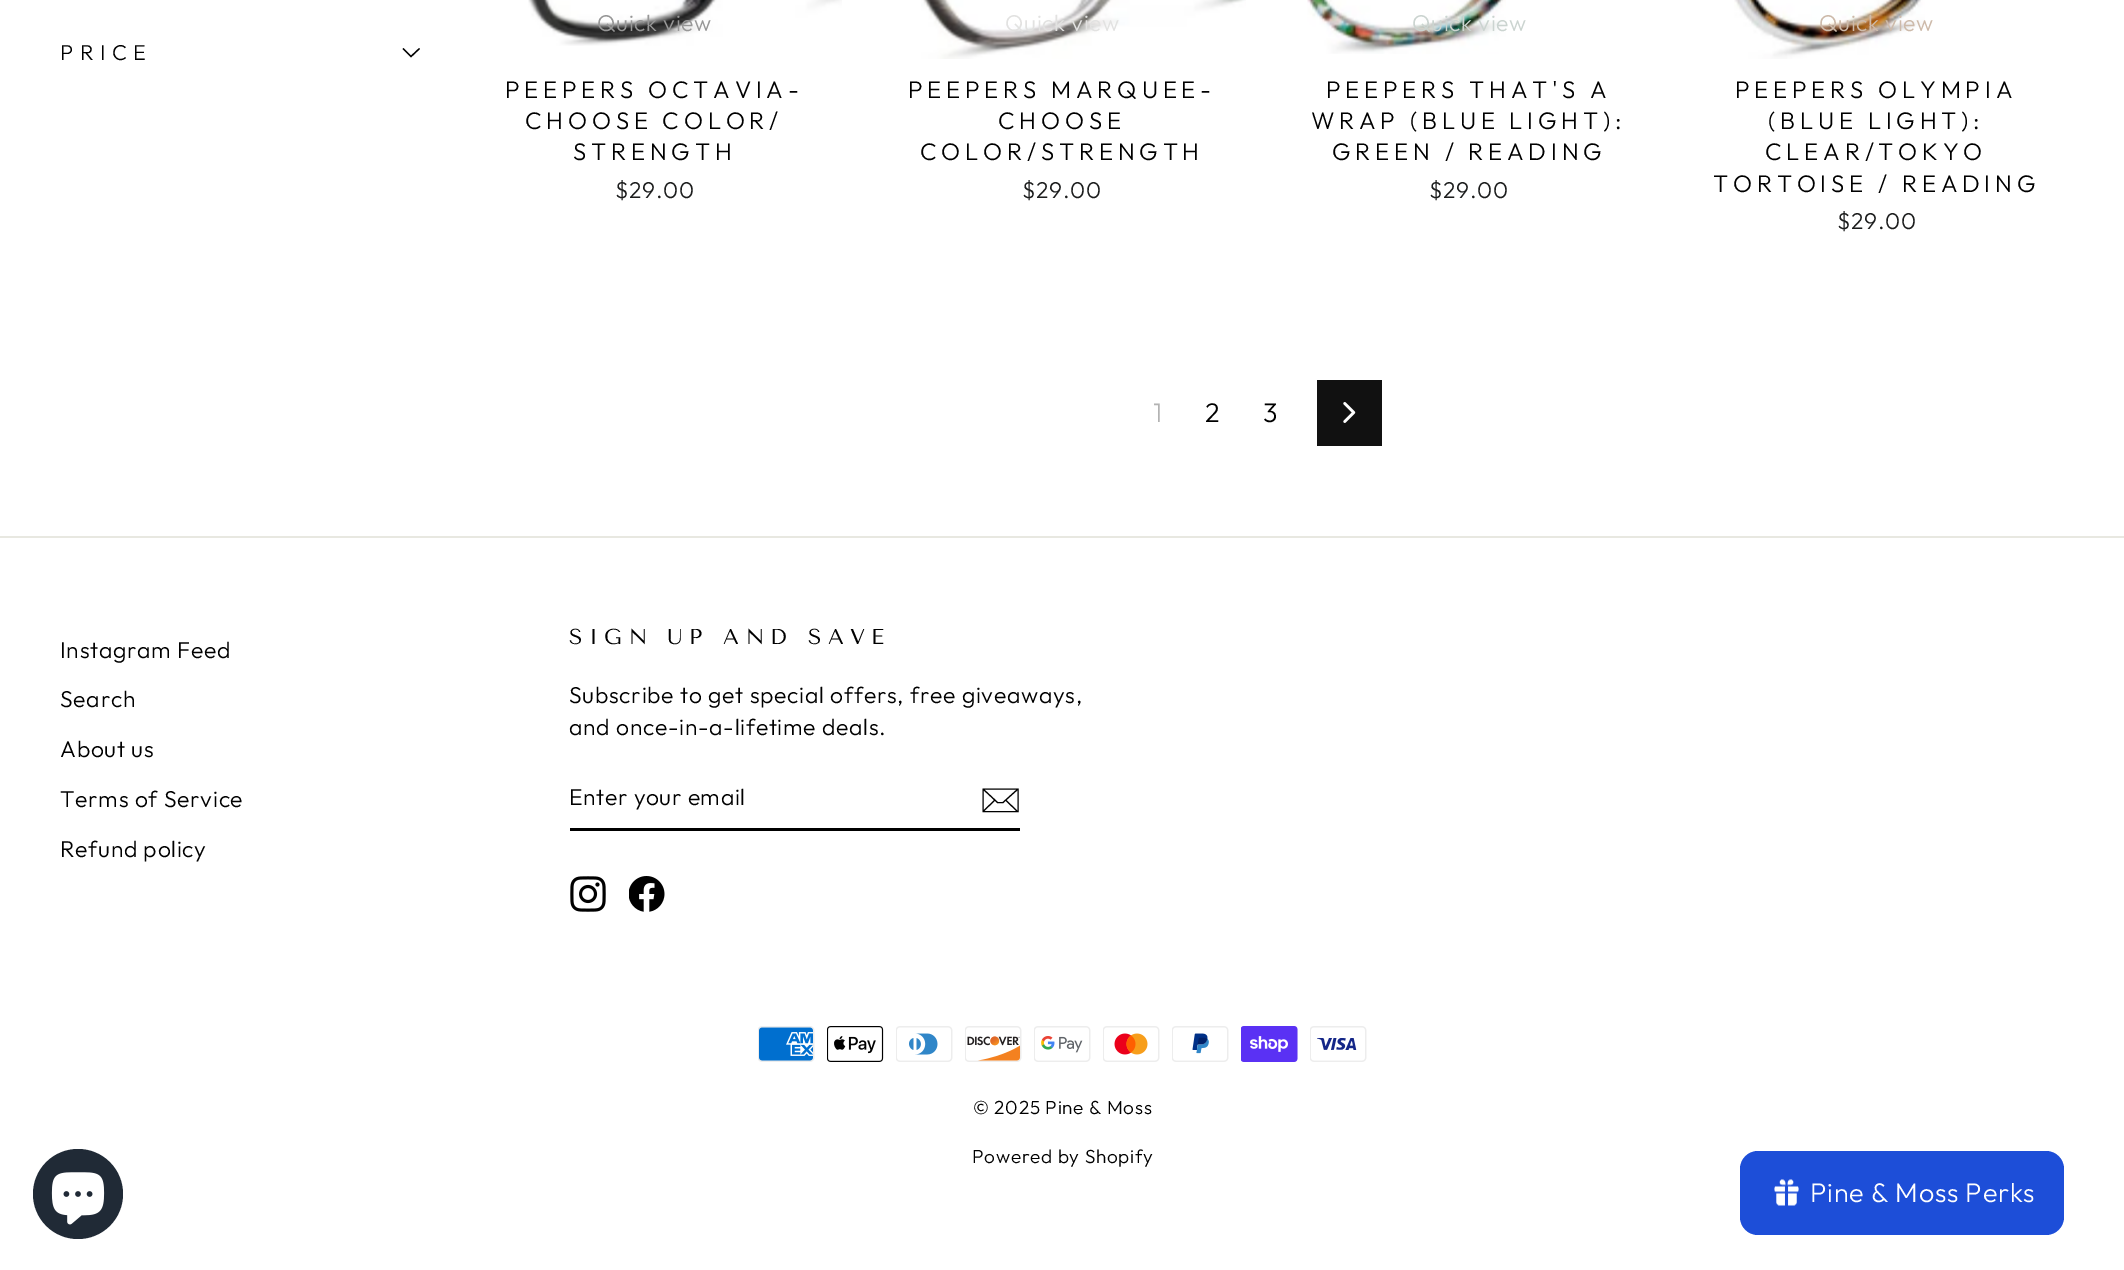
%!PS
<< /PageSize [2124 1270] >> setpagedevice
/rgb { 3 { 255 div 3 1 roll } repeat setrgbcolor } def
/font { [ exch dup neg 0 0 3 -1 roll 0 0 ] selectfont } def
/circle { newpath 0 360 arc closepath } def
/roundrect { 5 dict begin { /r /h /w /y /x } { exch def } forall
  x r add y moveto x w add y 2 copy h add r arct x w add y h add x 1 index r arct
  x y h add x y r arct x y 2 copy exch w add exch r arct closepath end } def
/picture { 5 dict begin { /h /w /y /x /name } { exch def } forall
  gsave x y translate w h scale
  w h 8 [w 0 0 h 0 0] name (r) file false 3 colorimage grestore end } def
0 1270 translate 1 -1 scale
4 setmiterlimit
255 255 255 rgb
0 0 2124 1270 rectfill
0 0 0 rgb
1.3 setlinewidth
403 48.5 moveto 411 56.5 lineto 419.5 48.5 lineto stroke
(img/1.rgb) 528 0 314 46 picture
(img/2.rgb) 921 0 325 59 picture
(img/3.rgb) 1307 0 199 54 picture
(img/4.rgb) 1734 0 191 59 picture
17 17 17 rgb
1317 380 65 66 rectfill
(img/5.rgb) 1343 402 13 21 picture
232 232 225 rgb
0 536 2124 2 rectfill
0 0 0 rgb
570 828 450 3 rectfill
1.1 setlinewidth
1018 811.5 moveto 983 811.5 lineto 983 789 lineto 1018 789 lineto closepath 983 789 moveto 997.5 802.5 lineto 1003 802.5 lineto 1018 789 lineto 995 800 moveto 983.5 811 lineto 1017.5 811.5 moveto 1005.5 800 lineto stroke
(img/6.rgb) 570 876 36 36 picture
(img/7.rgb) 629 876 36 36 picture
(img/8.rgb) 758 1026 57 36 picture
(img/9.rgb) 827 1026 57 36 picture
(img/10.rgb) 896 1026 57 36 picture
(img/11.rgb) 965 1026 57 36 picture
(img/12.rgb) 1034 1026 57 36 picture
(img/13.rgb) 1103 1026 57 36 picture
(img/14.rgb) 1172 1026 57 36 picture
(img/15.rgb) 1241 1026 57 36 picture
(img/16.rgb) 1310 1026 57 36 picture
32 42 54 rgb
78 1194 45 circle fill
(img/17.rgb) 51 1172 54 53 picture
29 78 216 rgb
1740 1151 324 84 18 roundrect fill
(img/18.rgb) 1774 1179 25 27 picture
/Outfit-Light 21.6 font
0 0 0 rgb
60 60 moveto 6.5 0 (PRICE) ashow
/Outfit-Light 22.95 font
151 151 151 rgb
597 31 moveto 0.6 0 (Quick view) ashow
/Outfit-Light 24 font
0 0 0 rgb
505 98 moveto 4.75 0 (PEEPERS OCTAVIA-) ashow
525 129 moveto 4.75 0 (CHOOSE COLOR/) ashow
573 160 moveto 4.75 0 (STRENGTH) ashow
/Outfit-Light 22.95 font
28 29 29 rgb
615 198 moveto 0.7 0 ($29.00) ashow
226 226 225 rgb
1005 31 moveto 0.6 0 (Quick view) ashow
/Outfit-Light 24 font
0 0 0 rgb
908 98 moveto 4.75 0 (PEEPERS MARQUEE-) ashow
998 129 moveto 4.75 0 (CHOOSE) ashow
920 160 moveto 4.75 0 (COLOR/STRENGTH) ashow
/Outfit-Light 22.95 font
28 29 29 rgb
1022 198 moveto 0.7 0 ($29.00) ashow
203 212 208 rgb
1412 31 moveto 0.6 0 (Quick view) ashow
/Outfit-Light 24 font
0 0 0 rgb
1326 98 moveto 4.75 0 (PEEPERS THAT'S A) ashow
1311 129 moveto 4.75 0 (WRAP \(BLUE LIGHT\):) ashow
1332 160 moveto 4.75 0 (GREEN / READING) ashow
/Outfit-Light 22.95 font
28 29 29 rgb
1429 198 moveto 0.7 0 ($29.00) ashow
205 186 170 rgb
1819 31 moveto 0.6 0 (Quick view) ashow
/Outfit-Light 24 font
0 0 0 rgb
1735 98 moveto 4.75 0 (PEEPERS OLYMPIA) ashow
1768 129 moveto 4.75 0 (\(BLUE LIGHT\):) ashow
1765 160 moveto 4.75 0 (CLEAR/TOKYO) ashow
1713 192 moveto 4.75 0 (TORTOISE / READING) ashow
/Outfit-Light 22.95 font
28 29 29 rgb
1837 229 moveto 0.7 0 ($29.00) ashow
/Outfit-Light 27 font
179 179 179 rgb
1153 422 moveto 0.7 0 (1) ashow
0 0 0 rgb
1205 422 moveto 0.7 0 (2) ashow
1263 422 moveto 0.7 0 (3) ashow
/Outfit-Light 22.95 font
60 658 moveto 0.7 0 (Instagram Feed) ashow
60 707 moveto 0.7 0 (Search) ashow
60 757 moveto 0.7 0 (About us) ashow
60 807 moveto 0.7 0 (Terms of Service) ashow
60 857 moveto 0.7 0 (Refund policy) ashow
/TenorSans-Regular 21.6 font
569 644 moveto 6.5 0 (SIGN UP AND SAVE) ashow
/Outfit-Light 22.95 font
569 703 moveto 0.7 0 (Subscribe to get special offers, free giveaways,) ashow
569 735 moveto 0.7 0 (and once-in-a-lifetime deals.) ashow
569 805 moveto 0.6 0 (Enter your email) ashow
/Outfit-Light 19 font
973 1114 moveto 0.7 0 (© 2025 Pine & Moss) ashow
972 1163 moveto 0.7 0 (Powered by Shopify) ashow
/Outfit-Light 27 font
255 255 255 rgb
1810 1202 moveto 0.7 0 (Pine & Moss Perks) ashow
showpage
